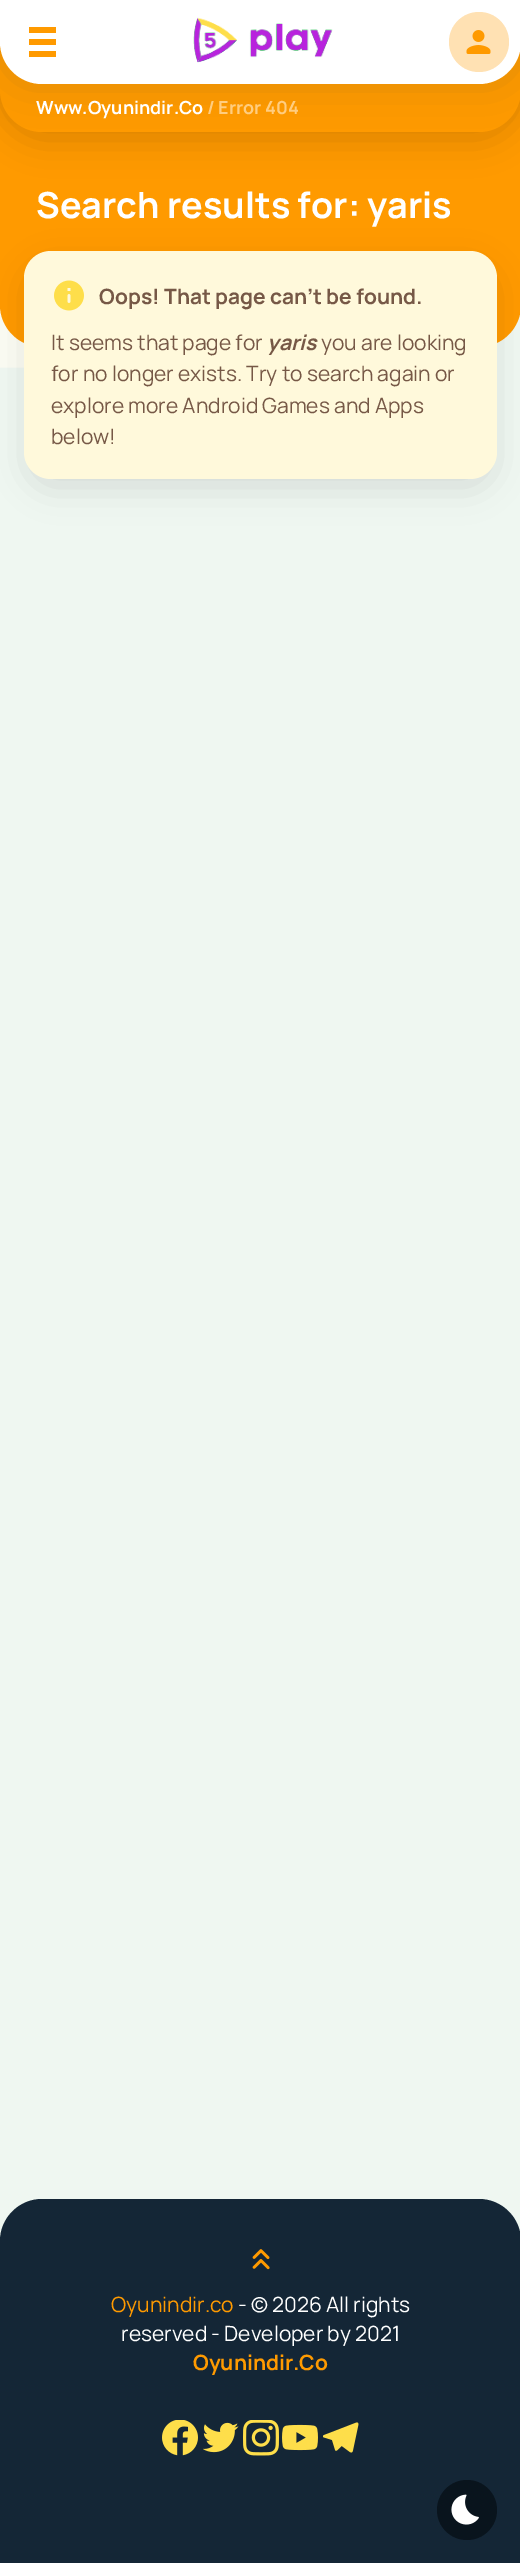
%!PS
<< /PageSize [520 2563] /PageUsesTransparency true >> setpagedevice
/rgb { 3 { 255 div 3 1 roll } repeat setrgbcolor } def
/font { [ exch dup neg 0 0 3 -1 roll 0 0 ] selectfont } def
/alpha { dup .setfillconstantalpha .setstrokeconstantalpha } def
/circle { newpath 0 360 arc closepath } def
/roundrect { 5 dict begin { /r /h /w /y /x } { exch def } forall
  x r add y moveto x w add y 2 copy h add r arct x w add y h add x 1 index r arct
  x y h add x y r arct x y 2 copy exch w add exch r arct closepath end } def
/shadow { 12 dict begin { /a /b /q /h /w /y /x } { exch def } forall gsave /was 0 def
  9 -2 -9 { dup b mul 4 div /e exch def 1 sub .425 mul 2.718 exch exp 1 add a .99 .min exch div /now exch def
    1 1 now sub 1 was sub div sub alpha /was now def
    w h .min e 2 mul add 0 gt { x e sub y e sub w e 2 mul add h e 2 mul add
      q e add b .6 mul add w h .min 2 div e add .min 0 .max roundrect fill } if } for grestore end } def
/picture { 5 dict begin { /h /w /y /x /name } { exch def } forall
  gsave x y translate w h scale
  w h 8 [w 0 0 h 0 0] name (r) file false 3 colorimage grestore end } def
0 .pushpdf14devicefilter
0 2563 translate 1 -1 scale
4 setmiterlimit
239 247 241 rgb
0 0 520 2563 rectfill
(img/3.rgb) 0 305 24 63 picture
255 154 0 rgb
0 0 moveto 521 0 lineto 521 305 lineto 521 328 502 347 479 347 curveto 42 347 lineto 19 347 0 328 0 305 curveto closepath fill
0 0 0 rgb
0 30 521 108 42 18 0.15 shadow
255 154 0 rgb
0 24 moveto 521 24 lineto 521 90 lineto 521 113 502 132 479 132 curveto 42 132 lineto 19 132 0 113 0 90 curveto closepath fill
23 43 61 rgb
12 15 497 60 30 24 0.2 shadow
255 255 255 rgb
0 0 moveto 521 0 lineto 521 42 lineto 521 65 502 84 479 84 curveto 42 84 lineto 19 84 0 65 0 42 curveto closepath fill
[
  [29 27 27 6 255 154 0]
  [29 39 27 6 255 154 0]
  [29 51 27 6 255 154 0]
] { aload pop rgb rectfill } forall
(img/1.rgb) 193 17 140 46 picture
255 225 179 rgb
479 42 30 circle fill
(img/2.rgb) 466 30 25 24 picture
0 0 0 rgb
30 269 461 216 21 18 0.12 shadow
255 249 219 rgb
24 251 473 228 27 roundrect fill
(img/4.rgb) 54 280 30 31 picture
20 38 54 rgb
42 2199 moveto 479 2199 lineto 502 2199 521 2218 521 2241 curveto 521 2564 lineto 0 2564 lineto 0 2241 lineto 0 2218 19 2199 42 2199 curveto closepath fill
(img/5.rgb) 252 2249 18 21 picture
(img/6.rgb) 162 2420 36 36 picture
(img/7.rgb) 203 2422 36 31 picture
(img/8.rgb) 243 2420 36 36 picture
(img/9.rgb) 282 2424 36 27 picture
(img/10.rgb) 323 2422 36 31 picture
9 20 29 rgb
467 2510 30 circle fill
(img/11.rgb) 451 2494 28 31 picture
/Manrope-Bold 18 font
255 255 255 rgb
36 114 moveto (Www.Oyunindir.Co) show
255 205 128 rgb
207 114 moveto (/ Error 404) show
/Manrope-Bold 36 font
255 255 255 rgb
36 218 moveto (Search results for: yaris) show
/Manrope-Bold 21 font
118 88 70 rgb
99 304 moveto (Oops! That page can’t be found.) show
/Manrope-Regular 21 font
51 350 moveto (It seems that page for) show
/Manrope-BoldItalic 21 font
267 350 moveto (yaris) show
/Manrope-Regular 21 font
[
  [(you are looking) 321 350]
  [(for no longer exists. Try to search again or) 51 381]
  [(explore more Android Games and Apps) 51 413]
  [(below!) 51 444]
] { aload pop moveto show } forall
255 154 0 rgb
111 2312 moveto (Oyunindir.co) show
255 255 255 rgb
238 2312 moveto (- © 2026 All rights) show
121 2341 moveto (reserved - Developer by 2021) show
/Manrope-Bold 21 font
255 154 0 rgb
193 2370 moveto (Oyunindir.Co) show
.poppdf14devicefilter showpage
